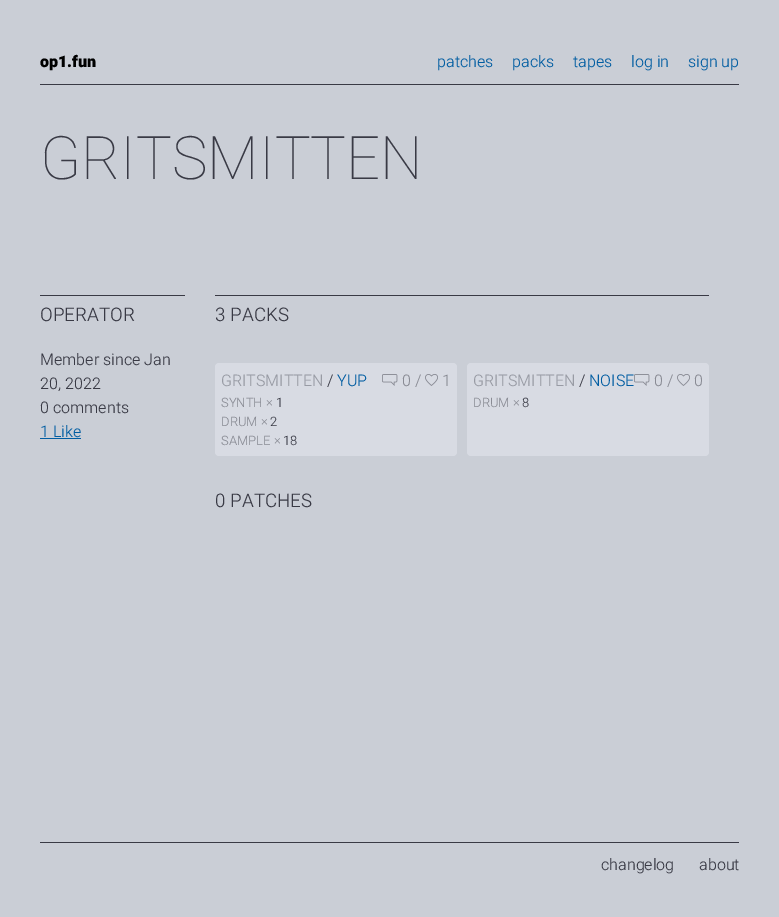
%!PS
<< /PageSize [779 917] >> setpagedevice
/rgb { 3 { 255 div 3 1 roll } repeat setrgbcolor } def
/font { [ exch dup neg 0 0 3 -1 roll 0 0 ] selectfont } def
/roundrect { 5 dict begin { /r /h /w /y /x } { exch def } forall
  x r add y moveto x w add y 2 copy h add r arct x w add y h add x 1 index r arct
  x y h add x y r arct x y 2 copy exch w add exch r arct closepath end } def
/picture { 5 dict begin { /h /w /y /x /name } { exch def } forall
  gsave x y translate w h scale
  w h 8 [w 0 0 h 0 0] name (r) file false 3 colorimage grestore end } def
0 917 translate 1 -1 scale
4 setmiterlimit
202 206 214 rgb
0 0 779 917 rectfill
[
  [40 84 699 1 57 58 69]
  [40 295 145 1 57 58 69]
  [40 438 41 1 1 93 162]
  [215 295 494 1 57 58 69]
] { aload pop rgb rectfill } forall
216 219 227 rgb
215 363 242 93 4 roundrect fill
(img/1.rgb) 382 374 16 12 picture
(img/2.rgb) 425 374 13 12 picture
467 363 242 93 4 roundrect fill
(img/1.rgb) 634 374 16 12 picture
(img/2.rgb) 677 374 13 12 picture
57 58 69 rgb
40 842 699 1 rectfill
/Heebo-Black 16 font
0 0 0 rgb
40 67 moveto (op1.fun) show
/Heebo-Light 16 font
1 93 162 rgb
[
  [(patches) 437 67]
  [(packs) 512 67]
  [(tapes) 573 67]
  [(log in) 631 67]
  [(sign up) 688 67]
] { aload pop moveto show } forall
/Heebo-Thin 60 font
57 58 69 rgb
40 179 moveto (GRITSMITTEN) show
/Heebo-Light 18.75 font
40 321 moveto (OPERATOR) show
/Heebo-Light 16 font
[
  [(Member since Jan) 40 365]
  [(20, 2022) 40 389]
  [(0 comments) 40 413]
] { aload pop moveto show } forall
1 93 162 rgb
40 437 moveto (1 Like) show
/Heebo-Light 18.75 font
57 58 69 rgb
215 321 moveto (3 PACKS) show
/Heebo-Light 16 font
152 155 164 rgb
221 386 moveto (GRITSMITTEN) show
57 58 69 rgb
327 386 moveto (/) show
1 93 162 rgb
337 386 moveto (YUP) show
137 139 148 rgb
402 386 moveto (0 /) show
442 386 moveto (1) show
/Heebo-Light 13 font
221 407 moveto (SYNTH ×) show
57 58 69 rgb
276 407 moveto (1) show
137 139 148 rgb
221 426 moveto (DRUM ×) show
57 58 69 rgb
270 426 moveto (2) show
137 139 148 rgb
221 445 moveto (SAMPLE ×) show
57 58 69 rgb
283 445 moveto (18) show
/Heebo-Light 16 font
152 155 164 rgb
473 386 moveto (GRITSMITTEN) show
57 58 69 rgb
579 386 moveto (/) show
1 93 162 rgb
589 386 moveto (NOISE) show
137 139 148 rgb
654 386 moveto (0 /) show
694 386 moveto (0) show
/Heebo-Light 13 font
473 407 moveto (DRUM ×) show
57 58 69 rgb
522 407 moveto (8) show
/Heebo-Light 18.75 font
215 507 moveto (0 PATCHES) show
/Heebo-Light 16 font
601 870 moveto (changelog) show
699 870 moveto (about) show
showpage
